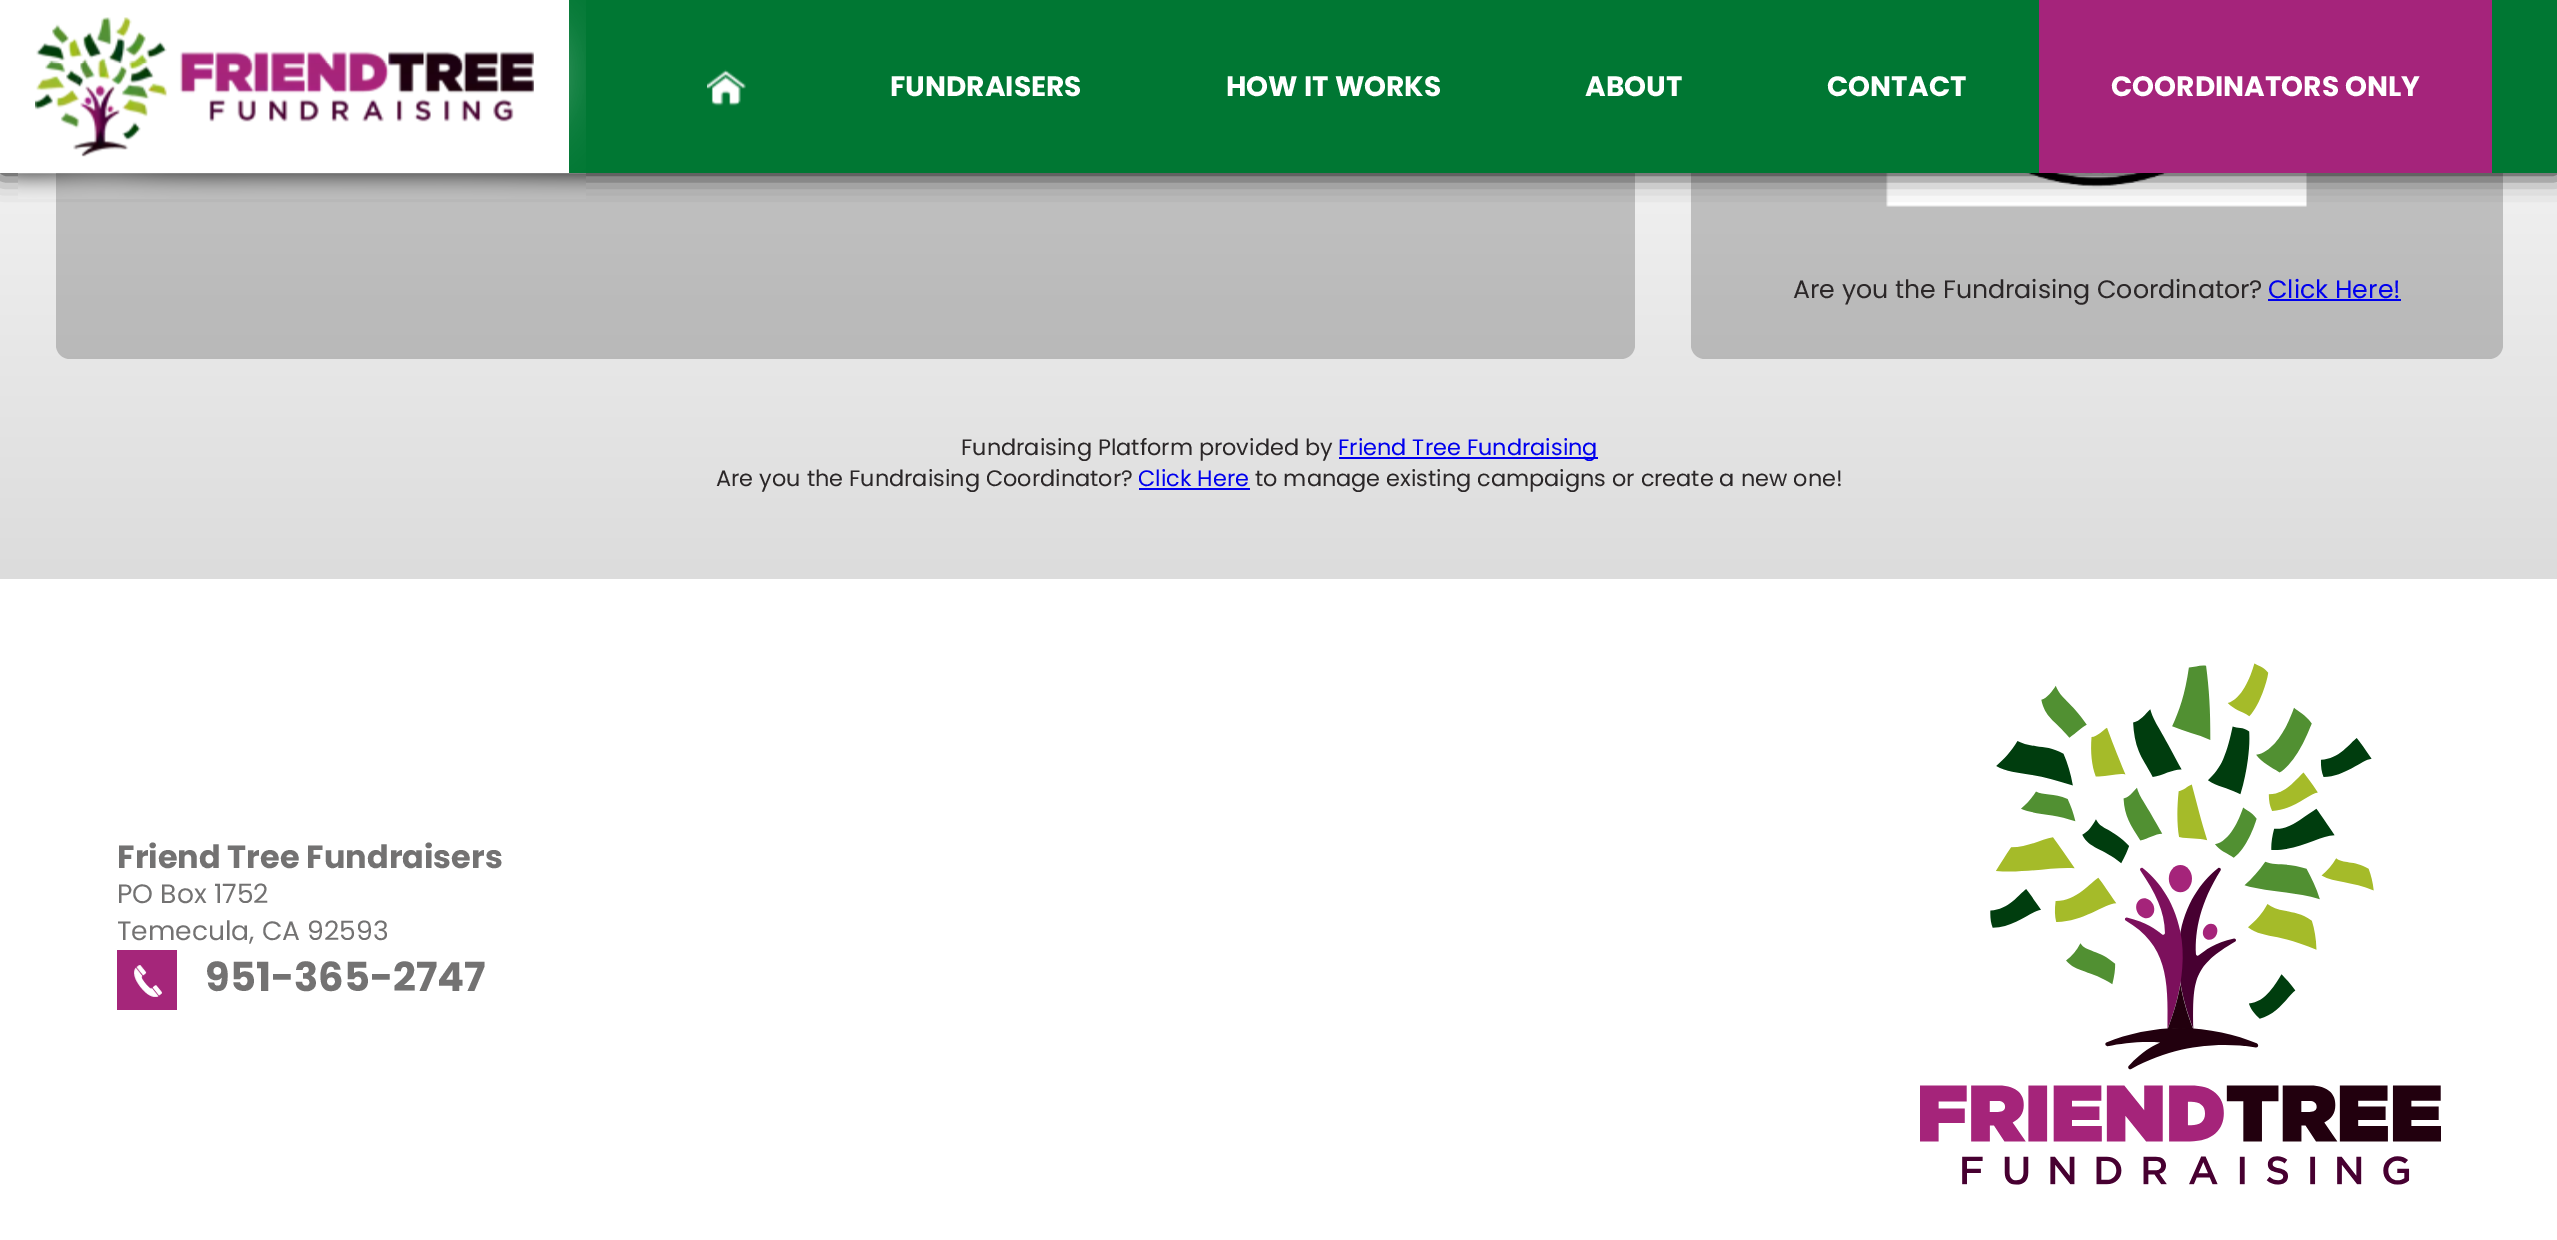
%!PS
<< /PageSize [2557 1240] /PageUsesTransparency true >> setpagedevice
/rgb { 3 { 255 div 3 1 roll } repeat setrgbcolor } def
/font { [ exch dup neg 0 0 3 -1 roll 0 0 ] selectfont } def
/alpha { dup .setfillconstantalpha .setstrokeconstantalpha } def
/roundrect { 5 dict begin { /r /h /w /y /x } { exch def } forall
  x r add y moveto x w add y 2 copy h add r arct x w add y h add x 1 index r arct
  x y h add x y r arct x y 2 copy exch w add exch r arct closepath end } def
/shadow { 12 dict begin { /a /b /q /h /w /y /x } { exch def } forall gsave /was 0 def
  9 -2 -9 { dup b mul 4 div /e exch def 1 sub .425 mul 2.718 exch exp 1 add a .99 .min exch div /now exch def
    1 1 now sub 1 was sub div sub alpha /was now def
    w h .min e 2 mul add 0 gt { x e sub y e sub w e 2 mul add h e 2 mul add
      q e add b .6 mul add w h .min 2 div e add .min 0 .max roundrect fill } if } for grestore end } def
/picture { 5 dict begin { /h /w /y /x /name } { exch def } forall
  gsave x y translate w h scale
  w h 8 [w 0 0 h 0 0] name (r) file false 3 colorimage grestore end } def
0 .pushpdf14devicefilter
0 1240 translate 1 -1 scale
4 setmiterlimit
255 255 255 rgb
0 0 2557 1240 rectfill
gsave 0 173 moveto 2557 173 lineto 2557 579 lineto 0 579 lineto closepath clip newpath
<< /ShadingType 2 /ColorSpace /DeviceRGB /Coords [1279 579 1279 -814] /Extend [true true] /Function << /FunctionType 3 /Domain [0 1] /Functions [<< /FunctionType 2 /Domain [0 1] /C0 [0.863 0.863 0.863] /C1 [1 1 1] /N 1 >> << /FunctionType 2 /Domain [0 1] /C0 [1 1 1] /C1 [1 1 1] /N 1 >>] /Bounds [0.5] /Encode [0 1 0 1] >> >> shfill grestore
0.2 alpha
0 0 0 rgb
56 -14 1579 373 14 roundrect fill
1691 -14 812 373 14 roundrect fill
1 alpha
(img/3.rgb) 1886 173 421 34 picture
0 0 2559 173 0 13 1 shadow
0 119 51 rgb
569 0 1988 173 rectfill
255 255 255 rgb
0 0 569 173 rectfill
(img/1.rgb) 18 0 568 199 picture
(img/2.rgb) 707 69 39 37 picture
[
  [2039 0 453 173 165 36 123]
  [2268 299 133 2 0 0 238]
  [1339 457 259 2 0 0 238]
  [1139 488 111 2 0 0 238]
  [117 950 60 60 165 38 122]
] { aload pop rgb rectfill } forall
(img/4.rgb) 134 965 28 32 picture
(img/5.rgb) 1920 663 521 522 picture
/Poppins-Bold 28 font
255 255 255 rgb
[
  [(FUNDRAISERS) 890 96]
  [(HOW IT WORKS) 1226 96]
  [(ABOUT) 1585 96]
  [(CONTACT) 1827 96]
  [(COORDINATORS ONLY) 2111 96]
] { aload pop moveto show } forall
/Poppins-Regular 25.25 font
43 39 40 rgb
1793 298 moveto (Are you the Fundraising Coordinator?) show
0 0 238 rgb
2268 298 moveto (Click Here!) show
/Poppins-Regular 22.4 font
43 39 40 rgb
961 455 moveto (Fundraising Platform provided by) show
0 0 238 rgb
1338 455 moveto (Friend Tree Fundraising) show
43 39 40 rgb
716 486 moveto (Are you the Fundraising Coordinator?) show
0 0 238 rgb
1138 486 moveto (Click Here) show
43 39 40 rgb
1255 486 moveto (to manage existing campaigns or create a new one!) show
/Poppins-Bold 32 font
115 114 114 rgb
117 868 moveto (Friend Tree Fundraisers) show
/Poppins-Regular 26.6 font
117 903 moveto (PO Box 1752) show
117 940 moveto (Temecula, CA 92593) show
/Poppins-Bold 40 font
205 991 moveto (951-365-2747) show
.poppdf14devicefilter showpage
